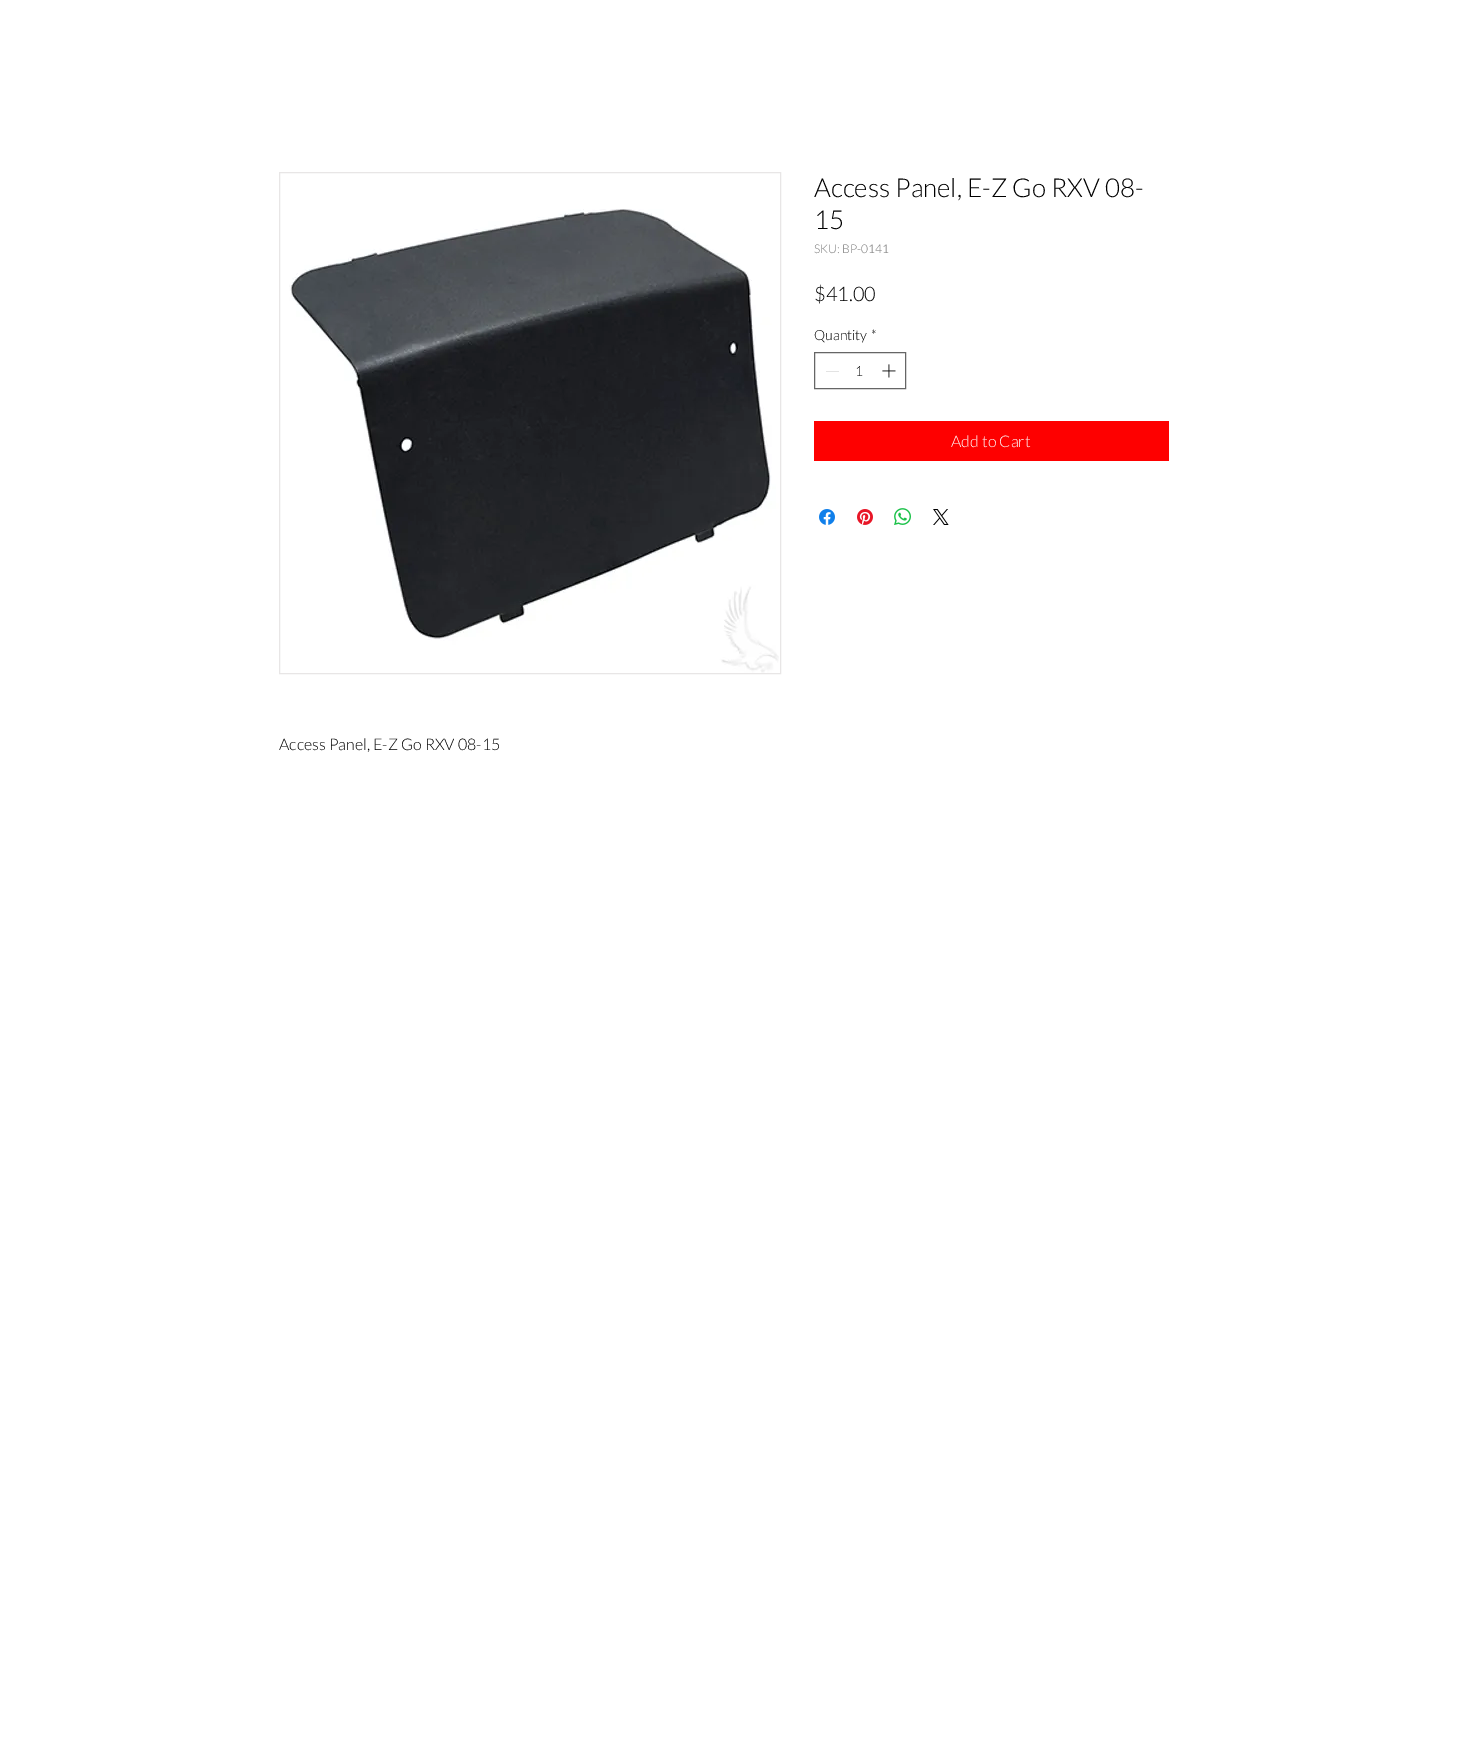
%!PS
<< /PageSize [1481 1753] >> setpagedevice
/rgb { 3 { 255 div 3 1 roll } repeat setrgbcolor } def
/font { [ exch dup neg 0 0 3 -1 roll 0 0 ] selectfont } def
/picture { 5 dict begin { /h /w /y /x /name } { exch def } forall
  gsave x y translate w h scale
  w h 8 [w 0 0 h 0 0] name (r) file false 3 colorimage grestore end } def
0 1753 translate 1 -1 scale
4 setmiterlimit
255 255 255 rgb
0 0 1481 1753 rectfill
102 102 102 rgb
814.5 352.5 91 36 rectstroke
227 227 227 rgb
826 371 13 1 rectfill
(img/1.rgb) 882 364 14 14 picture
254 0 0 rgb
814 421 355 40 rectfill
(img/2.rgb) 819 509 16 16 picture
(img/3.rgb) 857 509 16 16 picture
(img/4.rgb) 894 508 17 17 picture
(img/5.rgb) 933 509 16 16 picture
232 230 230 rgb
279.5 172.5 501 501 rectstroke
(img/6.rgb) 289 209 490 464 picture
/Lato-Light 26 font
0 0 0 rgb
814 197 moveto (Access Panel, E-Z Go RXV 08-) show
814 229 moveto (15) show
/Lato-Light 12 font
117 117 117 rgb
814 253 moveto (SKU: BP-0141) show
/Lato-Light 20 font
0 0 0 rgb
814 301 moveto ($41.00) show
/Lato-Light 14 font
[
  [(Quantity) 814 340]
  [(*) 871 340]
  [(1) 855 376]
] { aload pop moveto show } forall
/Lato-Light 16 font
255 255 255 rgb
951 447 moveto (Add to Cart) show
0 0 0 rgb
279 750 moveto (Access Panel, E-Z Go RXV 08-15) show
showpage
